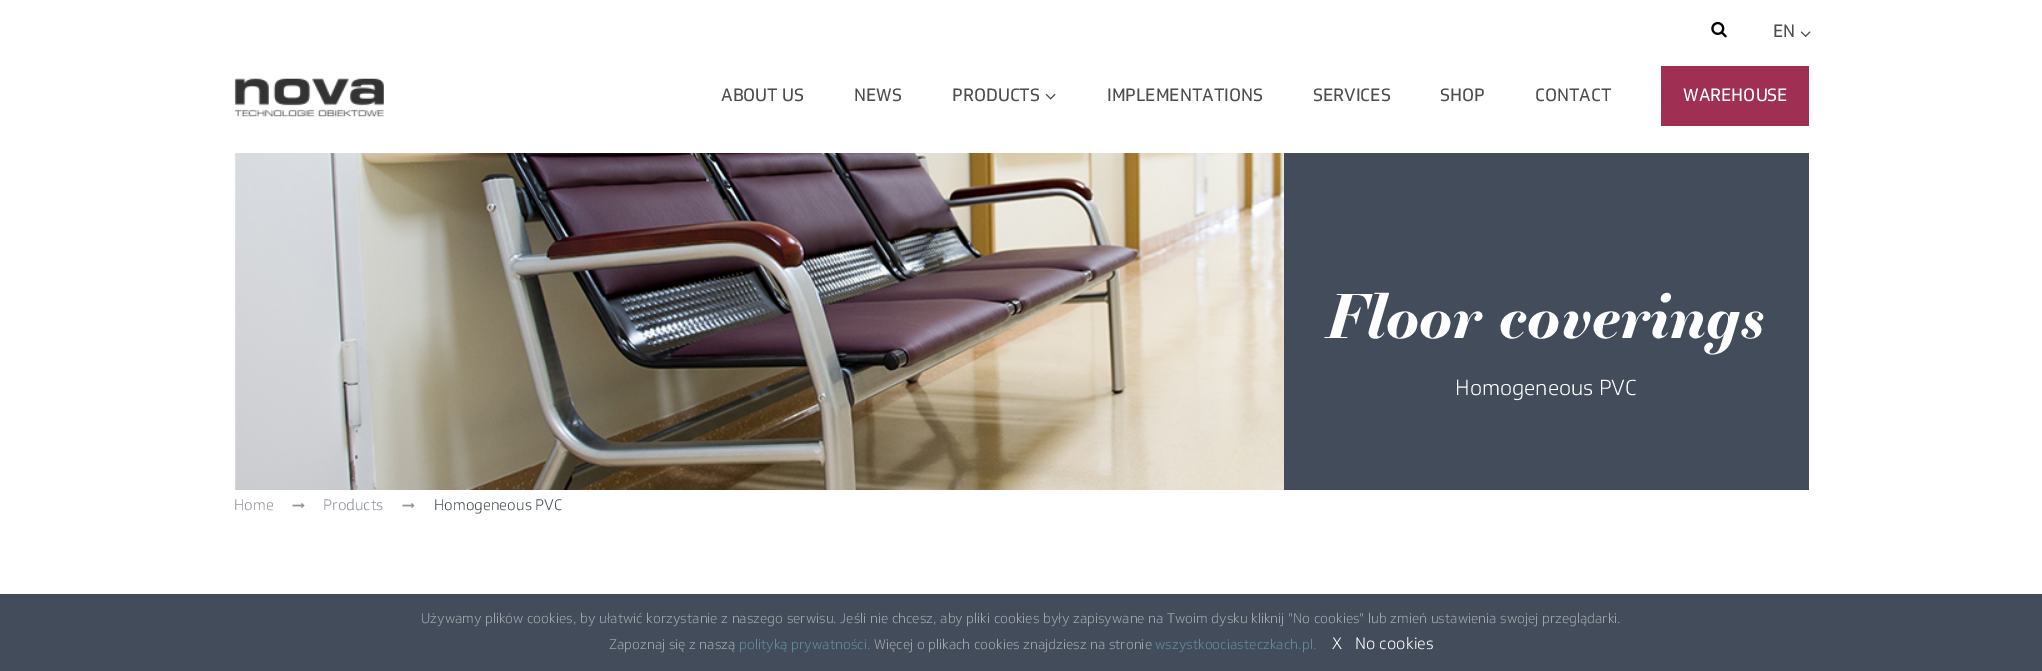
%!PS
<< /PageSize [2042 671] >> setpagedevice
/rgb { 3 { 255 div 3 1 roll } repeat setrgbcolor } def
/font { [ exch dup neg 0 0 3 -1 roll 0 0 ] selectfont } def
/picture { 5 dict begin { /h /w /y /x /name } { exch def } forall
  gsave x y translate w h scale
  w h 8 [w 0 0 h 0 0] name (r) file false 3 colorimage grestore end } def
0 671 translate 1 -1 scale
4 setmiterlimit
255 255 255 rgb
0 0 2042 671 rectfill
(img/1.rgb) 234 78 150 39 picture
(img/2.rgb) 1711 21 16 17 picture
(img/3.rgb) 1800 31 11 6 picture
(img/4.rgb) 1045 93 11 7 picture
159 47 83 rgb
1661 66 148 60 rectfill
(img/5.rgb) 234 153 1050 337 picture
67 76 90 rgb
1284 153 525 337 rectfill
(img/6.rgb) 292 503 13 6 picture
(img/6.rgb) 402 503 13 6 picture
0 594 2042 77 rectfill
/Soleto-Regular 17.5 font
77 77 77 rgb
[
  [(EN) 1773 37]
  [(ABOUT US) 721 101]
  [(NEWS) 854 101]
  [(PRODUCTS) 952 101]
  [(IMPLEMENTATIONS) 1107 101]
  [(SERVICES) 1313 101]
  [(SHOP) 1440 101]
  [(CONTACT) 1535 101]
] { aload pop moveto show } forall
255 255 255 rgb
1683 101 moveto (WAREHOUSE) show
/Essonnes-BoldItalic 60 font
1327 338 moveto (Floor coverings) show
/Soleto-Light 21.25 font
1455 395 moveto (Homogeneous PVC) show
/Soleto-Light 15 font
142 148 156 rgb
234 510 moveto (Home) show
323 510 moveto (Products) show
67 76 90 rgb
434 510 moveto (Homogeneous PVC) show
/Soleto-Light 13.75 font
161 166 173 rgb
421 623 moveto (Używamy plików cookies, by ułatwić korzystanie z naszego serwisu. Jeśli nie chcesz, aby pliki cookies były zapisywane na Twoim dysku kliknij "No cookies" lub zmień ustawienia swojej przeglądarki.) show
609 649 moveto (Zapoznaj się z naszą) show
99 139 156 rgb
739 649 moveto (polityką prywatności.) show
161 166 173 rgb
874 649 moveto (Więcej o plikach cookies znajdziesz na stronie) show
99 139 156 rgb
1155 649 moveto (wszystkoociasteczkach.pl.) show
/Soleto-Light 16.25 font
255 255 255 rgb
1332 649 moveto (X) show
1355 649 moveto (No cookies) show
showpage
